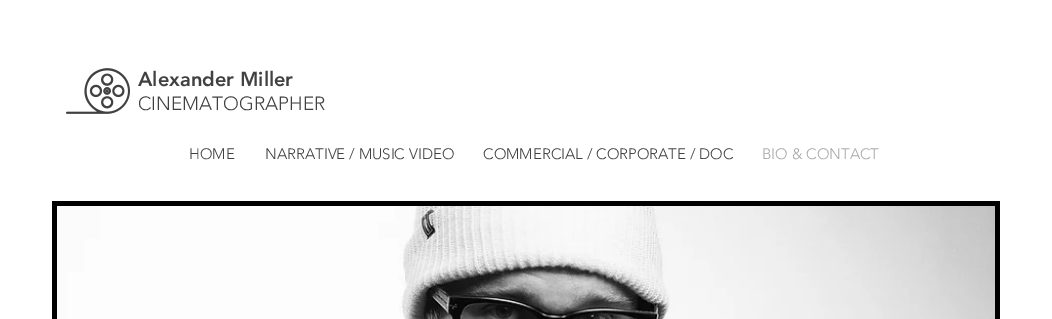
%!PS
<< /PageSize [1052 319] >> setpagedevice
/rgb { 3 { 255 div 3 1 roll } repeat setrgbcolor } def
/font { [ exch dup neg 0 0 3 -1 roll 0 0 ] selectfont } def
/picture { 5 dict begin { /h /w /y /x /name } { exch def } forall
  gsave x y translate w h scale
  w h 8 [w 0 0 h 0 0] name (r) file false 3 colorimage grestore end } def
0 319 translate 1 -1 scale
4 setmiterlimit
255 255 255 rgb
0 0 1052 319 rectfill
(img/1.rgb) 66 68 64 46 picture
0 0 0 rgb
52 201 948 118 rectfill
(img/2.rgb) 57 206 938 113 picture
/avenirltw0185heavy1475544-Black 20 font
65 65 65 rgb
138 86 moveto (Alexander Miller) show
/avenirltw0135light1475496-Light 19 font
138 110 moveto (CINEMATOGRAPHER) show
/avenirltw0135light1475496-Light 15 font
[
  [(HOME) 189 159]
  [(NARRATIVE / MUSIC VIDEO) 265 159]
  [(COMMERCIAL / CORPORATE / DOC) 483 159]
] { aload pop moveto show } forall
168 168 167 rgb
762 159 moveto (BIO & CONTACT) show
showpage
